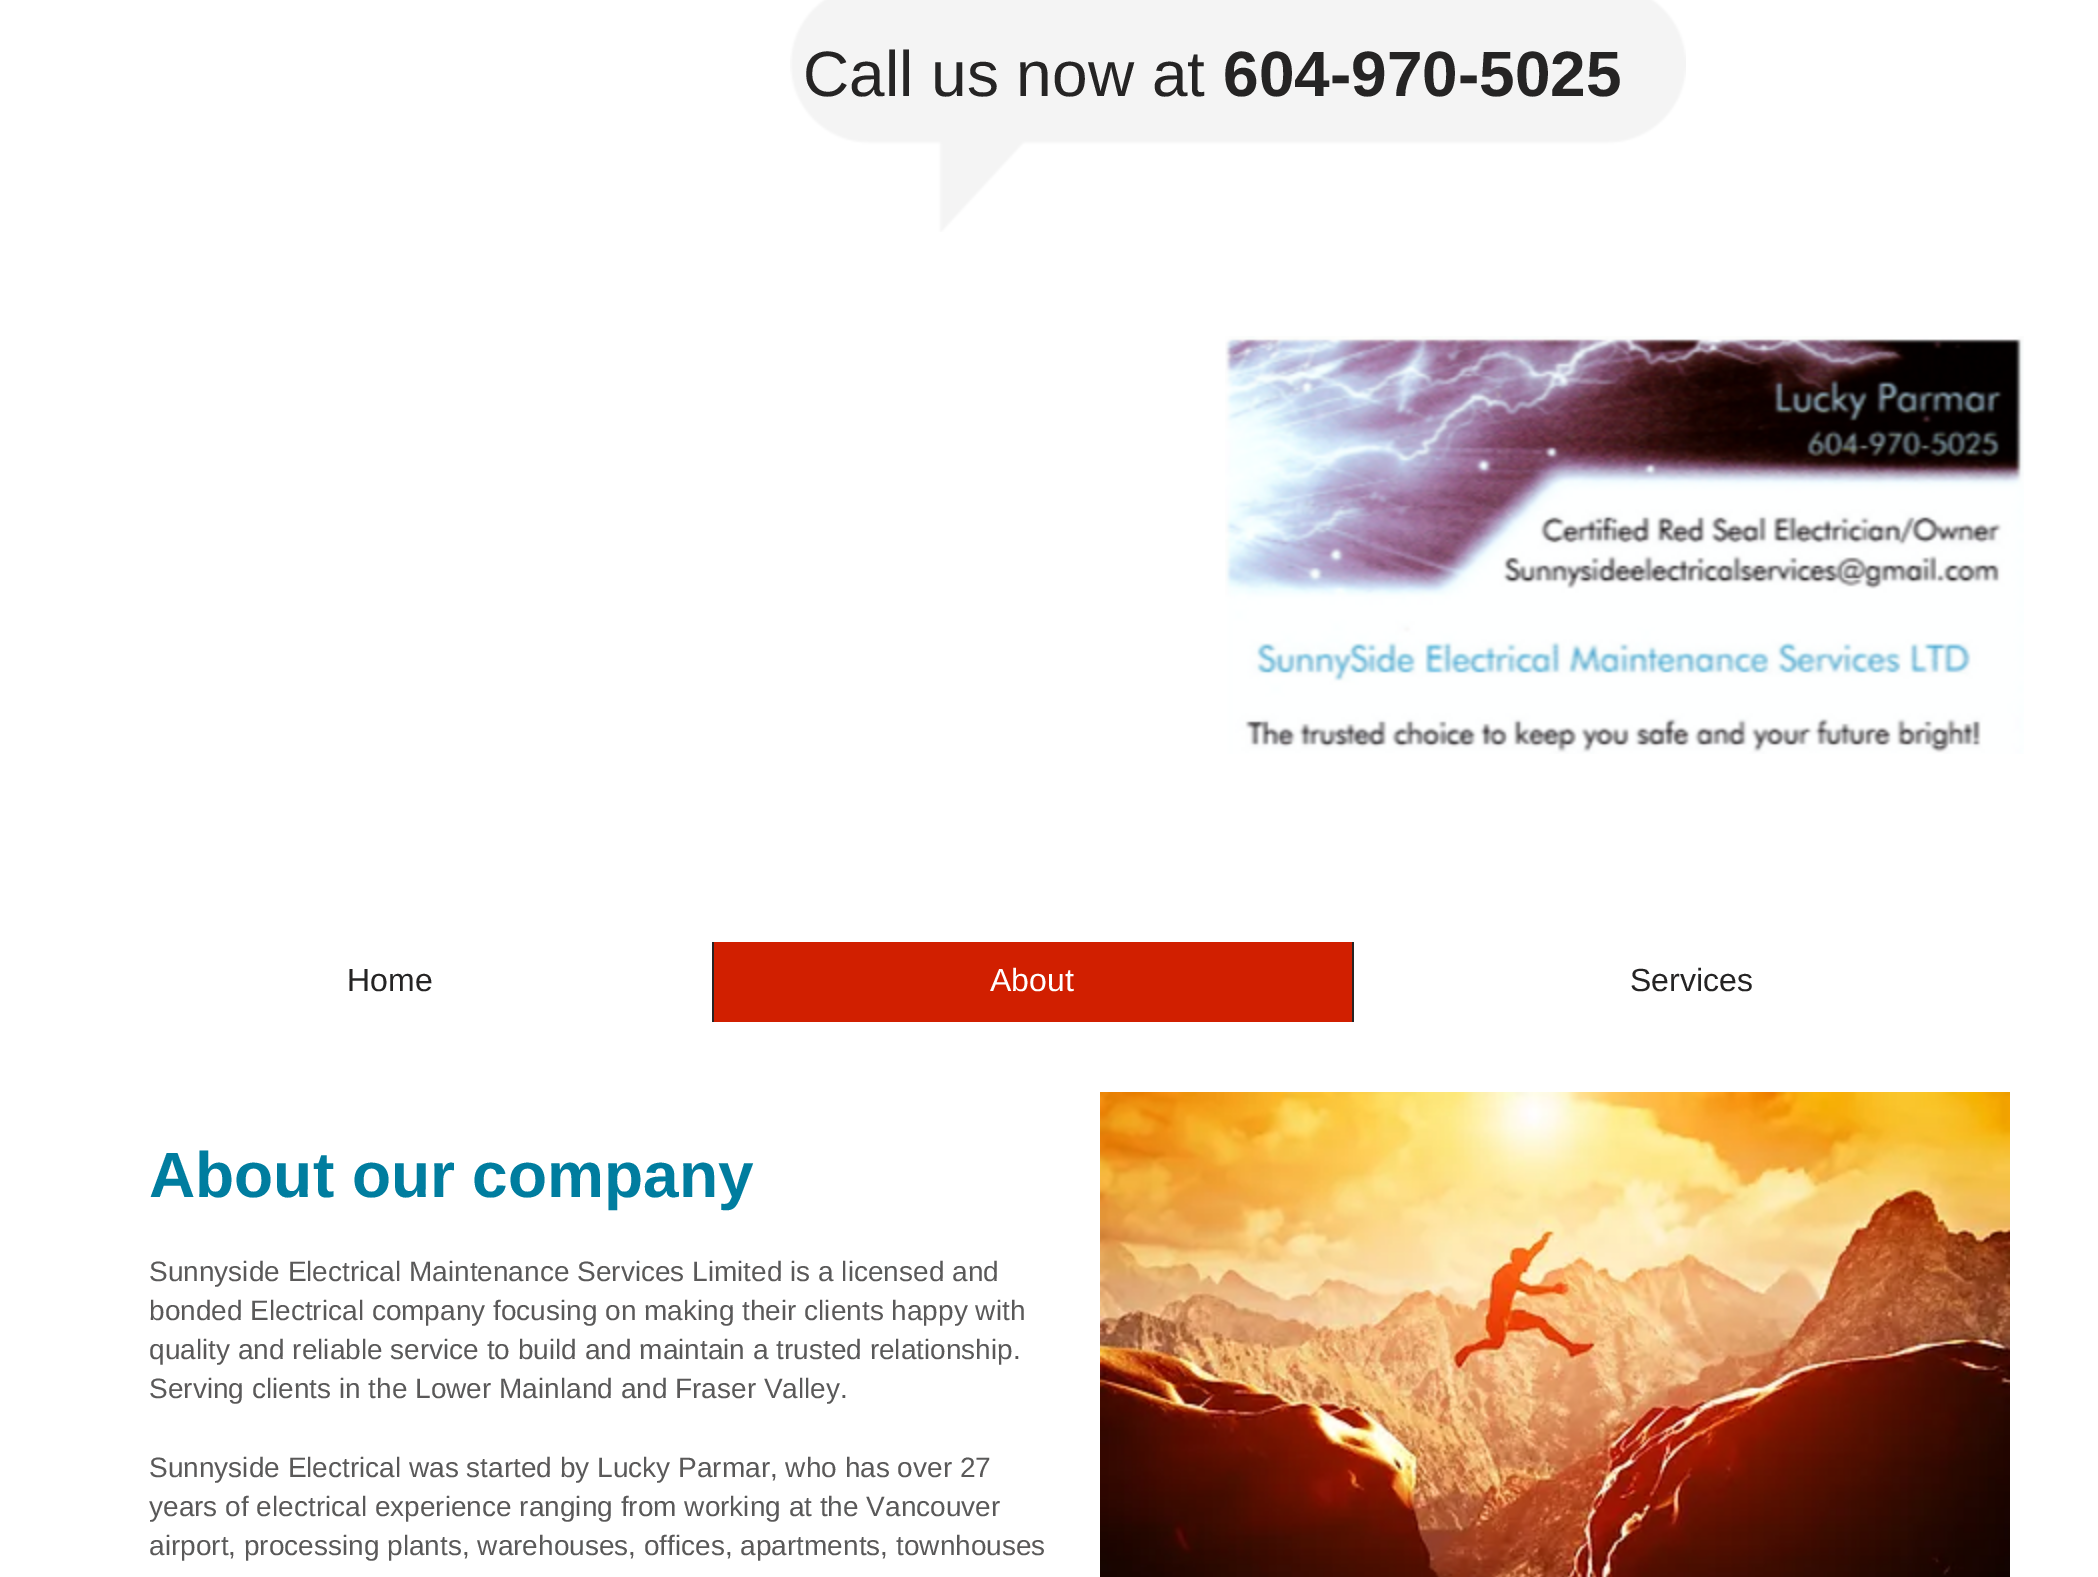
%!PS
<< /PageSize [2098 1577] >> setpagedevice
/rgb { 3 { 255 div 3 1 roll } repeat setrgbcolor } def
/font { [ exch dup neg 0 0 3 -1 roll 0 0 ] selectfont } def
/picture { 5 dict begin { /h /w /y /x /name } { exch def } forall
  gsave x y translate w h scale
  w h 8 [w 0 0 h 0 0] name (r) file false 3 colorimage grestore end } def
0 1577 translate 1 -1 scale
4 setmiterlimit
255 255 255 rgb
0 0 2098 1577 rectfill
(img/1.rgb) 790 0 896 232 picture
(img/2.rgb) 1225 336 799 418 picture
[
  [714 942 638 80 209 31 0]
  [712 942 2 80 37 36 36]
  [1352 942 2 80 37 36 36]
] { aload pop rgb rectfill } forall
(img/3.rgb) 1100 1092 910 485 picture
/LiberationSans-Regular 64 font
803 96 moveto (Call us now at) show
/LiberationSans-Bold 64 font
1223 96 moveto (604-970-5025) show
/LiberationSans-Regular 32 font
347 991 moveto (Home) show
255 255 255 rgb
990 991 moveto (About) show
37 36 36 rgb
1630 991 moveto (Services) show
/LiberationSans-Bold 64 font
0 125 159 rgb
149 1197 moveto (About our company) show
/LiberationSans-Regular 28 font
90 89 89 rgb
[
  [(Sunnyside Electrical Maintenance Services Limited is a licensed and) 149 1281]
  [(bonded Electrical company focusing on making their clients happy with) 149 1320]
  [(quality and reliable service to build and maintain a trusted relationship.) 149 1359]
  [(Serving clients in the Lower Mainland and Fraser Valley.) 149 1398]
  [(Sunnyside Electrical was started by Lucky Parmar, who has over 27) 149 1477]
  [(years of electrical experience ranging from working at the Vancouver) 149 1516]
  [(airport, processing plants, warehouses, offices, apartments, townhouses) 149 1555]
] { aload pop moveto show } forall
showpage
